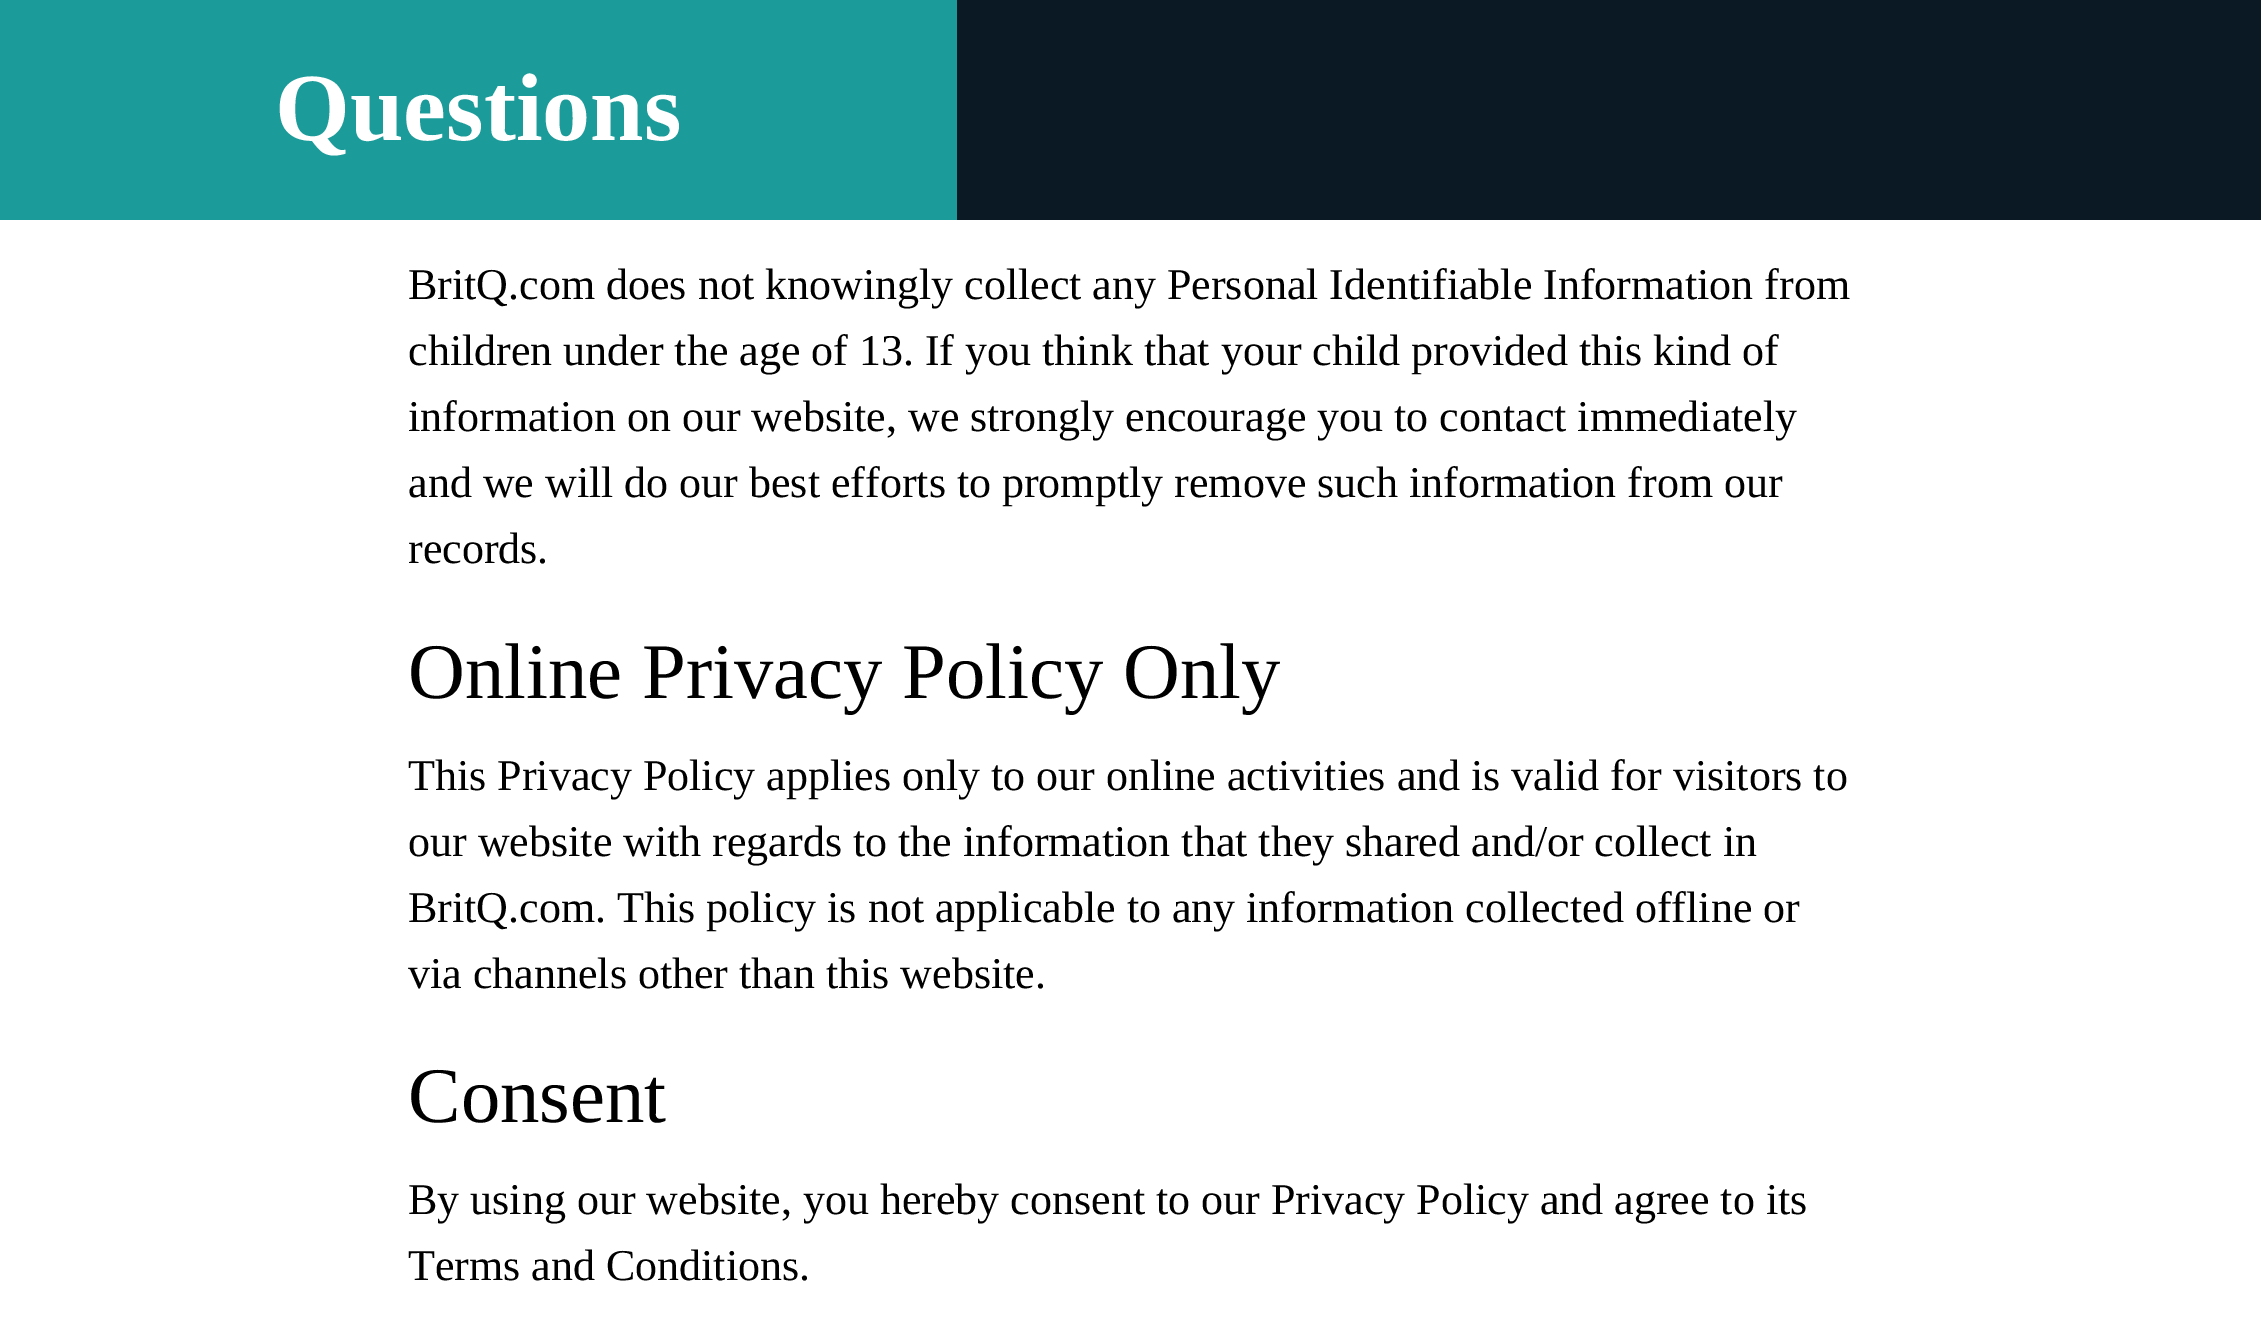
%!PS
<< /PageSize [2261 1343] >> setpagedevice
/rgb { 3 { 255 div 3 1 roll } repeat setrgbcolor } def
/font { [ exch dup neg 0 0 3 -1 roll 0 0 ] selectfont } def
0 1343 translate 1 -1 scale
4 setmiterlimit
255 255 255 rgb
0 0 2261 1343 rectfill
11 25 36 rgb
957 0 1304 220 rectfill
27 155 153 rgb
0 0 957 220 rectfill
/LiberationSerif-Bold 96.25 font
255 255 255 rgb
275 140 moveto (Questions) show
/LiberationSerif-Regular 44 font
0 0 0 rgb
[
  [(BritQ.com does not knowingly collect any Personal Identifiable Information from) 408 299]
  [(children under the age of 13. If you think that your child provided this kind of) 408 365]
  [(information on our website, we strongly encourage you to contact immediately) 408 431]
  [(and we will do our best efforts to promptly remove such information from our) 408 497]
  [(records.) 408 563]
] { aload pop moveto show } forall
/LiberationSerif-Regular 78.75 font
408 698 moveto (Online Privacy Policy Only) show
/LiberationSerif-Regular 44 font
[
  [(This Privacy Policy applies only to our online activities and is valid for visitors to) 408 790]
  [(our website with regards to the information that they shared and/or collect in) 408 856]
  [(BritQ.com. This policy is not applicable to any information collected offline or) 408 922]
  [(via channels other than this website.) 408 988]
] { aload pop moveto show } forall
/LiberationSerif-Regular 78.75 font
408 1122 moveto (Consent) show
/LiberationSerif-Regular 44 font
408 1214 moveto (By using our website, you hereby consent to our Privacy Policy and agree to its) show
408 1280 moveto (Terms and Conditions.) show
showpage
